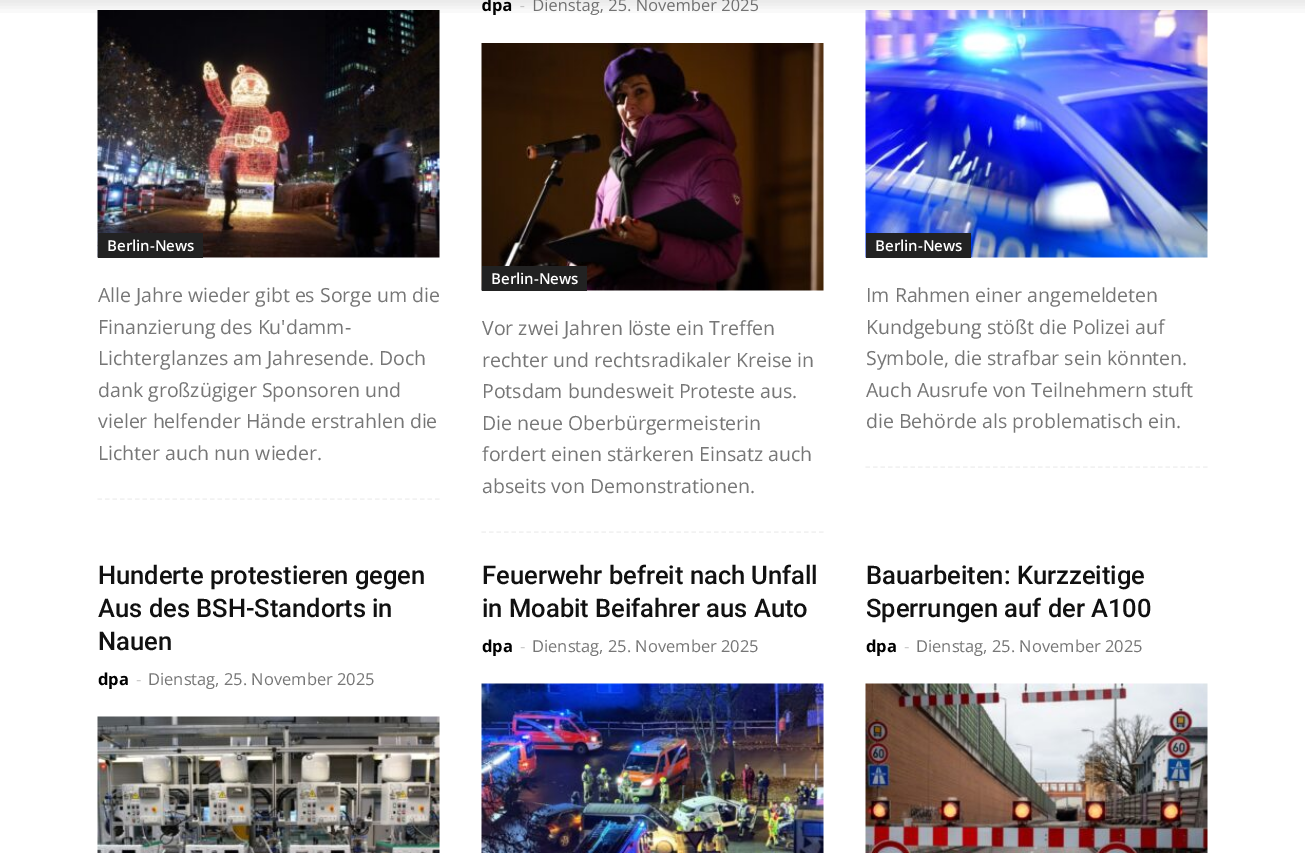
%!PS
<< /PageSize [1305 853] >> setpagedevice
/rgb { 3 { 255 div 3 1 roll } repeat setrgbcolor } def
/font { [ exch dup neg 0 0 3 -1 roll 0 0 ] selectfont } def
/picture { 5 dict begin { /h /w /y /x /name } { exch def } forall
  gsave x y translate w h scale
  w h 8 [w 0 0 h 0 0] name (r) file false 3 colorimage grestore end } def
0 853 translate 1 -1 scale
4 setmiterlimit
255 255 255 rgb
0 0 1305 853 rectfill
242 242 242 rgb
1.5 setlinewidth
[4.5 3] 0 setdash
97.5 499 moveto 439.5 499 lineto stroke
(img/2.rgb) 97 10 343 248 picture
34 34 34 rgb
98 233 105 25 rectfill
242 242 242 rgb
481.5 532 moveto 823.5 532 lineto stroke
(img/3.rgb) 481 43 343 248 picture
34 34 34 rgb
482 266 105 25 rectfill
242 242 242 rgb
865.5 467 moveto 1207.5 467 lineto stroke
(img/4.rgb) 865 10 343 248 picture
34 34 34 rgb
866 233 105 25 rectfill
(img/5.rgb) 97 716 343 137 picture
(img/6.rgb) 481 683 343 170 picture
(img/7.rgb) 865 683 343 170 picture
/OpenSans-SemiBold 15 font
255 255 255 rgb
107 251 moveto (Berlin-News) show
/OpenSans-Regular 19.5 font
118 118 118 rgb
[
  [(Alle Jahre wieder gibt es Sorge um die) 98 302]
  [(Finanzierung des Ku'damm-) 98 334]
  [(Lichterglanzes am Jahresende. Doch) 98 365]
  [(dank großzügiger Sponsoren und) 98 397]
  [(vieler helfender Hände erstrahlen die) 98 428]
  [(Lichter auch nun wieder.) 98 460]
] { aload pop moveto show } forall
/OpenSans-Bold 16.5 font
0 0 0 rgb
482 11 moveto (dpa) show
/OpenSans-Regular 16.5 font
204 204 204 rgb
520 11 moveto (-) show
118 118 118 rgb
532 11 moveto (Dienstag, 25. November 2025) show
(img/1.rgb) 0 0 1305 13 picture
/OpenSans-SemiBold 15 font
255 255 255 rgb
491 284 moveto (Berlin-News) show
/OpenSans-Regular 19.5 font
118 118 118 rgb
[
  [(Vor zwei Jahren löste ein Treffen) 482 335]
  [(rechter und rechtsradikaler Kreise in) 482 367]
  [(Potsdam bundesweit Proteste aus.) 482 398]
  [(Die neue Oberbürgermeisterin) 482 430]
  [(fordert einen stärkeren Einsatz auch) 482 461]
  [(abseits von Demonstrationen.) 482 493]
] { aload pop moveto show } forall
/OpenSans-SemiBold 15 font
255 255 255 rgb
875 251 moveto (Berlin-News) show
/OpenSans-Regular 19.5 font
118 118 118 rgb
[
  [(Im Rahmen einer angemeldeten) 866 302]
  [(Kundgebung stößt die Polizei auf) 866 334]
  [(Symbole, die strafbar sein könnten.) 866 365]
  [(Auch Ausrufe von Teilnehmern stuft) 866 397]
  [(die Behörde als problematisch ein.) 866 428]
] { aload pop moveto show } forall
/Roboto-Medium 25.5 font
17 17 17 rgb
[
  [(Hunderte protestieren gegen) 98 584]
  [(Aus des BSH-Standorts in) 98 617]
  [(Nauen) 98 650]
] { aload pop moveto show } forall
/OpenSans-Bold 16.5 font
0 0 0 rgb
98 685 moveto (dpa) show
/OpenSans-Regular 16.5 font
204 204 204 rgb
136 685 moveto (-) show
118 118 118 rgb
148 685 moveto (Dienstag, 25. November 2025) show
/Roboto-Medium 25.5 font
17 17 17 rgb
482 584 moveto (Feuerwehr befreit nach Unfall) show
482 617 moveto (in Moabit Beifahrer aus Auto) show
/OpenSans-Bold 16.5 font
0 0 0 rgb
482 652 moveto (dpa) show
/OpenSans-Regular 16.5 font
204 204 204 rgb
520 652 moveto (-) show
118 118 118 rgb
532 652 moveto (Dienstag, 25. November 2025) show
/Roboto-Medium 25.5 font
17 17 17 rgb
866 584 moveto (Bauarbeiten: Kurzzeitige) show
866 617 moveto (Sperrungen auf der A100) show
/OpenSans-Bold 16.5 font
0 0 0 rgb
866 652 moveto (dpa) show
/OpenSans-Regular 16.5 font
204 204 204 rgb
904 652 moveto (-) show
118 118 118 rgb
916 652 moveto (Dienstag, 25. November 2025) show
showpage
